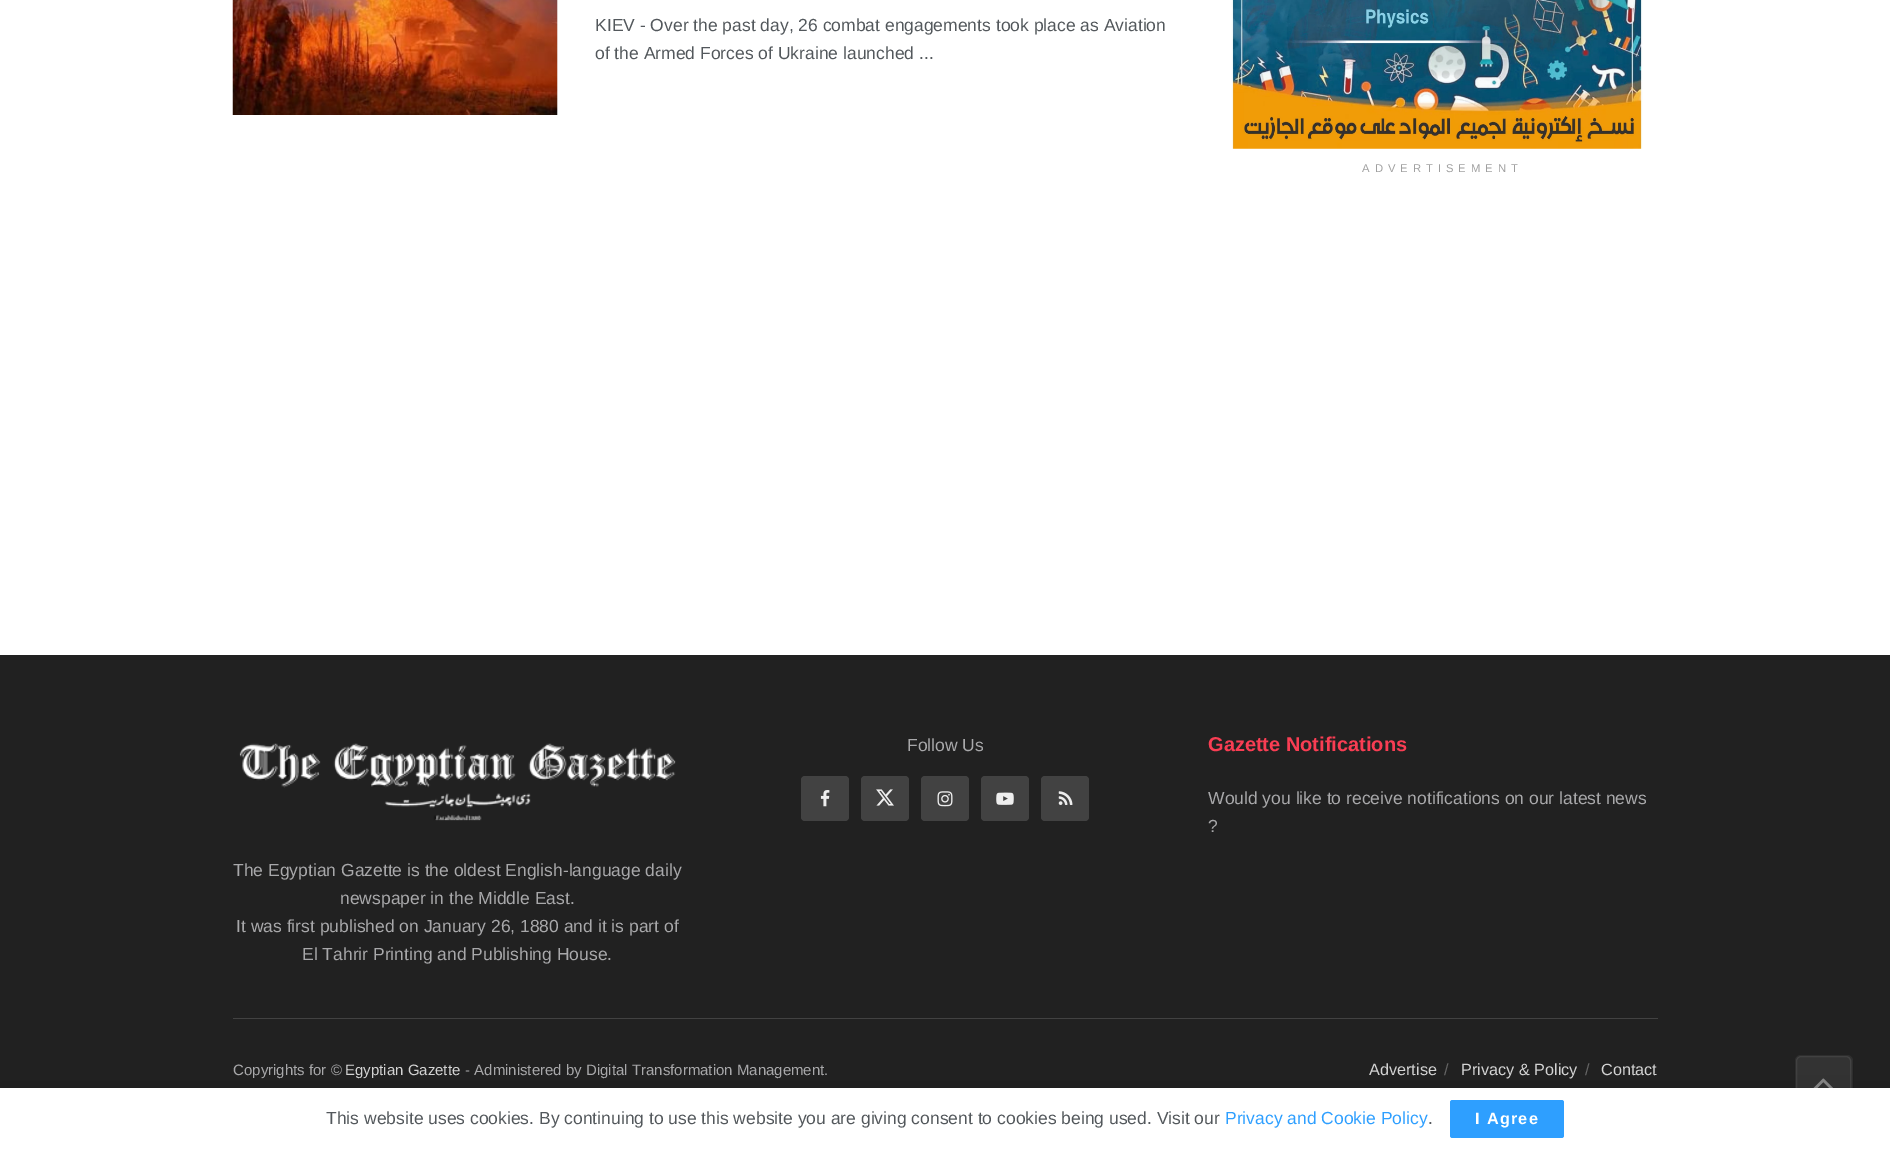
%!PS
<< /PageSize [1890 1149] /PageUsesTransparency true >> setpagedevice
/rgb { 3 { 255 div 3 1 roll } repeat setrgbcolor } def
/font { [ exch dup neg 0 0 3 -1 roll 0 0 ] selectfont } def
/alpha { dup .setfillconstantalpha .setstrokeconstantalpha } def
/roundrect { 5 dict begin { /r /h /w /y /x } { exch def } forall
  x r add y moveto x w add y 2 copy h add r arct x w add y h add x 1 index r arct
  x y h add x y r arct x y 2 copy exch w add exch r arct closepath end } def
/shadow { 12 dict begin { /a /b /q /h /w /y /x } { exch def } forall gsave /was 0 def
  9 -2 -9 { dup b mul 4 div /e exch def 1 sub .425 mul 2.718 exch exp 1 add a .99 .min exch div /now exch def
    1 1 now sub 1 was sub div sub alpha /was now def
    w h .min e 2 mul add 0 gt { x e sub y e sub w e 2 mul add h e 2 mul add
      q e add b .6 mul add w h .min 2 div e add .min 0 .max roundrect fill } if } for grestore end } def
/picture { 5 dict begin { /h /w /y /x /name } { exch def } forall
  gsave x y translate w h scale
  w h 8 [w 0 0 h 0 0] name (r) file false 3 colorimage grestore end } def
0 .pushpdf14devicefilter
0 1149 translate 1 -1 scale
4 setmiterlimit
255 255 255 rgb
0 0 1890 1149 rectfill
247 247 247 rgb
557 0 1 115 rectfill
(img/1.rgb) 232 0 326 115 picture
(img/2.rgb) 1231 0 412 149 picture
33 33 33 rgb
0 655 1890 433 rectfill
66 66 66 rgb
801 776 48 45 4 roundrect fill
(img/3.rgb) 820 790 10 17 picture
861 776 48 45 4 roundrect fill
(img/4.rgb) 876 789 18 17 picture
921 776 48 45 4 roundrect fill
(img/5.rgb) 937 791 16 16 picture
981 776 48 45 4 roundrect fill
(img/6.rgb) 996 792 18 13 picture
1041 776 48 45 4 roundrect fill
(img/7.rgb) 1058 791 15 14 picture
(img/8.rgb) 239 743 437 78 picture
233 1018 1425 1 rectfill
7 7 7 rgb
1795 1058 58 57 6 4 0.1 shadow
51 51 51 rgb
1795 1055 58 58 6 roundrect fill
67 67 67 rgb
1796.5 1056.5 54 54 4.5 roundrect stroke
0.11 alpha
7 7 7 rgb
1795.5 1055.5 57 57 5.5 roundrect stroke
1 alpha
(img/9.rgb) 1813 1078 20 10 picture
0 0 0 rgb
0 1090 1890 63 0 12.5 0.15 shadow
255 255 255 rgb
0 1088 1890 61 rectfill
46 159 255 rgb
1450 1100 114 38 2.5 roundrect fill
/LiberationSans-Regular 17.5 font
83 88 92 rgb
595 31 moveto (KIEV - Over the past day, 26 combat engagements took place as Aviation) show
595 59 moveto (of the Armed Forces of Ukraine launched ...) show
/LiberationSans-Regular 11.25 font
160 160 160 rgb
1362 172 moveto 5 0 (ADVERTISEMENT) ashow
/LiberationSans-Regular 17.5 font
168 168 170 rgb
907 751 moveto (Follow Us) show
/LiberationSans-Bold 20 font
249 61 83 rgb
1208 751 moveto (Gazette Notifications) show
/LiberationSans-Regular 17.5 font
168 168 170 rgb
[
  [(Would you like to receive notifications on our latest news) 1208 804]
  [(?) 1208 832]
  [(The Egyptian Gazette is the oldest English-language daily) 233 876]
  [(newspaper in the Middle East.) 340 904]
  [(It was first published on January 26, 1880 and it is part of) 236 932]
  [(El Tahrir Printing and Publishing House.) 302 960]
] { aload pop moveto show } forall
/LiberationSans-Regular 15 font
233 1075 moveto (Copyrights for ©) show
211 211 211 rgb
345 1075 moveto (Egyptian Gazette) show
168 168 170 rgb
465 1075 moveto (- Administered by Digital Transformation Management.) show
/LiberationSans-Regular 16.25 font
211 211 211 rgb
1369 1075 moveto (Advertise) show
100 100 100 rgb
1444 1075 moveto (/) show
211 211 211 rgb
1461 1075 moveto (Privacy & Policy) show
100 100 100 rgb
1585 1075 moveto (/) show
211 211 211 rgb
1601 1075 moveto (Contact) show
/LiberationSans-Regular 17.5 font
83 88 92 rgb
326 1124 moveto (This website uses cookies. By continuing to use this website you are giving consent to cookies being used. Visit our) show
46 159 255 rgb
1225 1124 moveto (Privacy and Cookie Policy) show
83 88 92 rgb
1428 1124 moveto (.) show
/LiberationSans-Bold 16.25 font
255 255 255 rgb
1475 1124 moveto 1.25 0 (I Agree) ashow
.poppdf14devicefilter showpage
